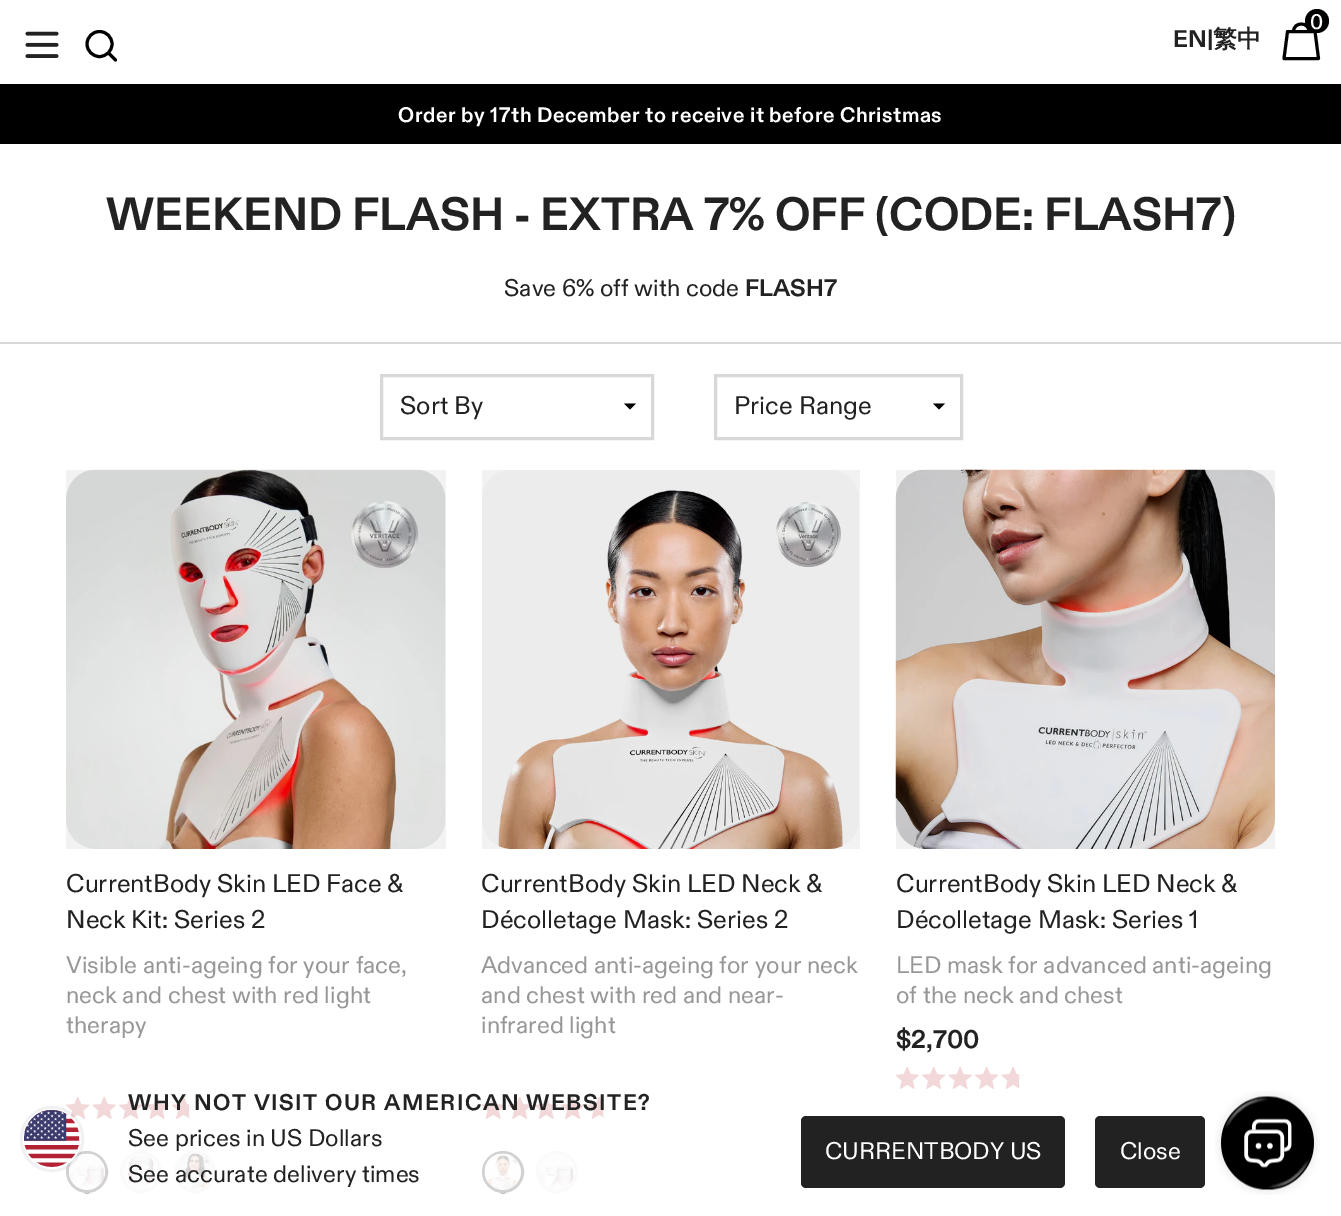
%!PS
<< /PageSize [1341 1216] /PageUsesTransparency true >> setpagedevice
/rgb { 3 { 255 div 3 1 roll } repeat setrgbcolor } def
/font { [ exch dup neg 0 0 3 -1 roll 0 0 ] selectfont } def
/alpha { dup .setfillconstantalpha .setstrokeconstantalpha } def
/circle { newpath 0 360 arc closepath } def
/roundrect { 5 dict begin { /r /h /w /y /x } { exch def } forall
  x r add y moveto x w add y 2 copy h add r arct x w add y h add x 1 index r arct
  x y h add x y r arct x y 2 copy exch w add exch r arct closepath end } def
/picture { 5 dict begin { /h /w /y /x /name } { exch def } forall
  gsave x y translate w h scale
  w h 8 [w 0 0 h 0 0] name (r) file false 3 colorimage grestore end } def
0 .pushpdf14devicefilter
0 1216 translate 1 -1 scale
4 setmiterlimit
255 255 255 rgb
0 0 1341 1216 rectfill
(img/1.rgb) 25 31 34 27 picture
0 0 0 rgb
3 setlinewidth
99.5 44 12.5 circle stroke
1 setlinecap
115.5 60 moveto 109.5 54 lineto stroke
1 setlinejoin
1287.5 31.5 moveto 1315 31.5 lineto 1318.5 58.5 lineto 1284 58.5 lineto closepath 1309 31.5 moveto 1309 21.5 1293.5 21.5 1293.5 31.5 curveto stroke
1317 21 12 circle fill
0 84 1341 60 rectfill
216 216 216 rgb
0 342 1341 2 rectfill
0 setlinecap
0 setlinejoin
381.5 375.5 271 63 rectstroke
0 0 0 rgb
624 403.5 moveto 636 403.5 lineto 630 409.5 lineto closepath fill
216 216 216 rgb
715.5 375.5 246 63 rectstroke
0 0 0 rgb
933 403.5 moveto 945 403.5 lineto 939 409.5 lineto closepath fill
(img/2.rgb) 66 469 380 380 picture
0.05 alpha
66 470 380 379 rectfill
1 alpha
(img/3.rgb) 66 1096 129 23 picture
(img/4.rgb) 66 1097 123 22 picture
26 26 26 rgb
87 1172 19.5 circle stroke
(img/5.rgb) 69 1153 36 37 picture
229 231 235 rgb
141 1172 19.5 circle stroke
(img/6.rgb) 123 1154 36 35 picture
195 1172 19.5 circle stroke
(img/7.rgb) 177 1153 36 37 picture
(img/8.rgb) 482 470 377 379 picture
0.05 alpha
0 0 0 rgb
482 470 378 379 rectfill
1 alpha
(img/9.rgb) 481 1096 130 23 picture
(img/10.rgb) 482 1097 121 22 picture
26 26 26 rgb
503 1172 19.5 circle stroke
(img/11.rgb) 484 1153 37 37 picture
229 231 235 rgb
557 1172 19.5 circle stroke
(img/12.rgb) 539 1154 35 35 picture
(img/13.rgb) 895 469 380 380 picture
0.05 alpha
0 0 0 rgb
896 470 379 379 rectfill
1 alpha
(img/9.rgb) 895 1066 130 23 picture
(img/14.rgb) 896 1067 123 22 picture
0.8 alpha
255 255 255 rgb
66 1066 959 127 rectfill
0.1 alpha
107 114 128 rgb
5 setlinewidth
22.5 1108.5 59 61 29.5 roundrect stroke
1 alpha
255 255 255 rgb
2 setlinewidth
24 1110 56 58 28 roundrect stroke
(img/15.rgb) 24 1110 56 57 picture
34 34 34 rgb
801 1116 264 72 5 roundrect fill
1095 1116 110 72 5 roundrect fill
(img/16.rgb) 1215 1091 105 104 picture
/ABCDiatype-Medium 21 font
255 255 255 rgb
1310 29 moveto (0) show
/ABCDiatype-Bold 24 font
34 34 34 rgb
1173 47 moveto (EN|) show
/WenQuanYiZenHei-Bold 24 font
1213 47 moveto (繁中) show
/ABCDiatype-Bold 21 font
255 255 255 rgb
398 122 moveto 0.52 0 (Order by 17th December to receive it before Christmas) ashow
/ABCDiatype-Bold 46.5 font
34 34 34 rgb
106 230 moveto (WEEKEND FLASH - EXTRA 7% OFF \(CODE: FLASH7\)) show
/ABCDiatype-Regular 24 font
504 296 moveto (Save 6% off with code) show
/ABCDiatype-Bold 24 font
745 296 moveto (FLASH7) show
/ABCDiatype-Regular 25.5 font
[
  [(Sort By) 400 414]
  [(Price Range) 734 414]
  [(CurrentBody Skin LED Face &) 66 892]
  [(Neck Kit: Series 2) 66 928]
] { aload pop moveto show } forall
/ABCDiatype-Regular 24 font
151 151 151 rgb
[
  [(Visible anti-ageing for your face,) 66 973]
  [(neck and chest with red light) 66 1003]
  [(therapy) 66 1033]
] { aload pop moveto show } forall
/ABCDiatype-Regular 25.5 font
34 34 34 rgb
481 892 moveto (CurrentBody Skin LED Neck &) show
481 928 moveto (Décolletage Mask: Series 2) show
/ABCDiatype-Regular 24 font
151 151 151 rgb
[
  [(Advanced anti-ageing for your neck) 481 973]
  [(and chest with red and near-) 481 1003]
  [(infrared light) 481 1033]
] { aload pop moveto show } forall
/ABCDiatype-Regular 25.5 font
34 34 34 rgb
896 892 moveto (CurrentBody Skin LED Neck &) show
896 928 moveto (Décolletage Mask: Series 1) show
/ABCDiatype-Regular 24 font
151 151 151 rgb
896 973 moveto (LED mask for advanced anti-ageing) show
896 1003 moveto (of the neck and chest) show
/ABCDiatype-Bold 25.5 font
34 34 34 rgb
896 1048 moveto ($2,700) show
/ABCDiatype-Bold 22.6 font
128 1110 moveto 1.5 0 (WHY NOT VISIT OUR AMERICAN WEBSITE?) ashow
/ABCDiatype-Regular 24 font
128 1146 moveto (See prices in US Dollars) show
128 1182 moveto (See accurate delivery times) show
255 255 255 rgb
825 1159 moveto (CURRENTBODY US) show
1120 1159 moveto (Close) show
.poppdf14devicefilter showpage
